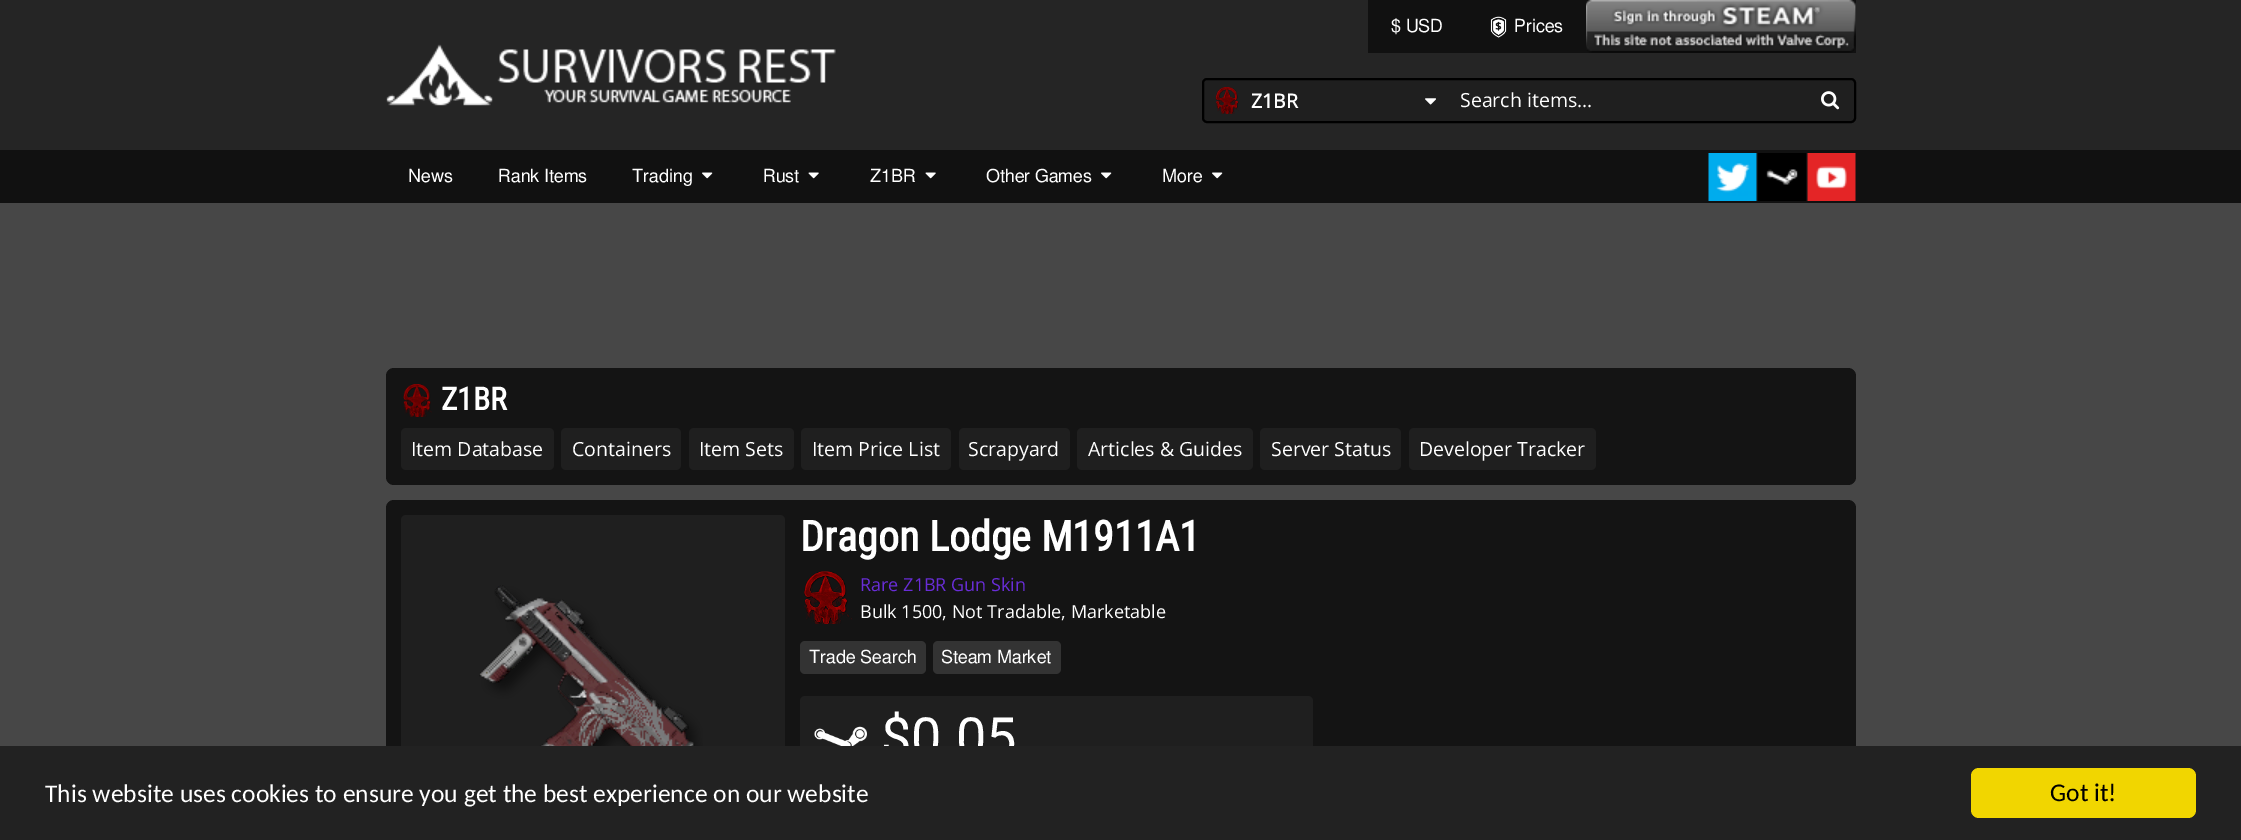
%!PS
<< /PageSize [2241 840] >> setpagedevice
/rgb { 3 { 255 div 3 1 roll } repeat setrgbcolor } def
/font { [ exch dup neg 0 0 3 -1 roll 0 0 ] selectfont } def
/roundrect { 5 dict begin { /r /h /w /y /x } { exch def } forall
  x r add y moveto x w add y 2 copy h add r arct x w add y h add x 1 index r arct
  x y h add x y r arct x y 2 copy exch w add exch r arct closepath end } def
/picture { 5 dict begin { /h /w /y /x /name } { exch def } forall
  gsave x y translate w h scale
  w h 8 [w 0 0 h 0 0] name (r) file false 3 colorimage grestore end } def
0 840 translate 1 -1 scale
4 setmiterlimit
71 71 71 rgb
0 0 2241 840 rectfill
37 37 37 rgb
0 0 2241 150 rectfill
17 17 17 rgb
1368 0 488 53 rectfill
(img/1.rgb) 1490 16 17 22 picture
(img/2.rgb) 1586 0 270 53 picture
(img/3.rgb) 386 44 450 62 picture
31 31 31 rgb
1203 79 652 43 4 roundrect gsave fill grestore
0 0 0 rgb
2 setlinewidth
stroke
(img/4.rgb) 1215 87 24 27 picture
(img/5.rgb) 1425 98 11 7 picture
(img/6.rgb) 1821 91 19 19 picture
17 17 17 rgb
0 150 2241 53 rectfill
(img/7.rgb) 702 172 11 7 picture
(img/8.rgb) 808 172 11 7 picture
(img/8.rgb) 925 172 11 7 picture
(img/7.rgb) 1101 172 11 7 picture
(img/7.rgb) 1212 172 11 7 picture
(img/9.rgb) 1708 153 49 48 picture
(img/10.rgb) 1758 153 48 48 picture
(img/11.rgb) 1807 153 49 48 picture
20 20 20 rgb
386 368 1470 117 8 roundrect fill
(img/12.rgb) 403 384 29 33 picture
31 31 31 rgb
401 428 153 42 5 roundrect fill
561 428 120 42 5 roundrect fill
689 428 105 42 5 roundrect fill
801 428 150 42 5 roundrect fill
959 428 111 42 5 roundrect fill
1077 428 176 42 5 roundrect fill
1260 428 141 42 5 roundrect fill
1409 428 187 42 5 roundrect fill
20 20 20 rgb
386 500 1470 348 8 roundrect fill
31 31 31 rgb
401 515 384 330 5 roundrect fill
(img/13.rgb) 479 585 224 161 picture
(img/14.rgb) 804 571 48 53 picture
51 51 51 rgb
800 641 126 33 5 roundrect fill
933 641 128 33 5 roundrect fill
31 31 31 rgb
800 696 513 143 5 roundrect fill
(img/15.rgb) 814 726 53 20 picture
/FreeSans-Regular 18 font
255 255 255 rgb
1391 32 moveto ($ USD) show
1514 32 moveto (Prices) show
/OpenSans-Bold 19.5 font
1251 108 moveto (Z1BR) show
/OpenSans-Regular 19.5 font
1460 107 moveto (Search items...) show
/FreeSans-Regular 18 font
[
  [(News) 408 182]
  [(Rank Items) 498 182]
  [(Trading) 632 182]
  [(Rust) 763 182]
  [(Z1BR) 870 182]
  [(Other Games) 986 182]
  [(More) 1162 182]
] { aload pop moveto show } forall
/RobotoCondensed-Bold 31.5 font
441 410 moveto (Z1BR) show
/OpenSans-Regular 19.5 font
[
  [(Item Database) 411 456]
  [(Containers) 572 456]
  [(Item Sets) 699 456]
  [(Item Price List) 812 456]
  [(Scrapyard) 968 456]
  [(Articles & Guides) 1088 456]
  [(Server Status) 1271 456]
  [(Developer Tracker) 1419 456]
] { aload pop moveto show } forall
/RobotoCondensed-Bold 42 font
800 551 moveto (Dragon Lodge M1911A1) show
/OpenSans-Regular 18 font
105 45 215 rgb
860 591 moveto (Rare Z1BR Gun Skin) show
255 255 255 rgb
860 618 moveto (Bulk 1500, Not Tradable, Marketable) show
/FreeSans-Regular 18 font
809 663 moveto (Trade Search) show
941 663 moveto (Steam Market) show
/Roboto-Regular 54 font
881 756 moveto ($0.05) show
34 34 34 rgb
0 746 2241 94 rectfill
/Carlito-Regular 25.5 font
255 255 255 rgb
45 802 moveto (This website uses cookies to ensure you get the best experience on our website) show
241 214 0 rgb
1971 768 225 50 8 roundrect fill
0 0 0 rgb
2050 801 moveto (Got it!) show
showpage
